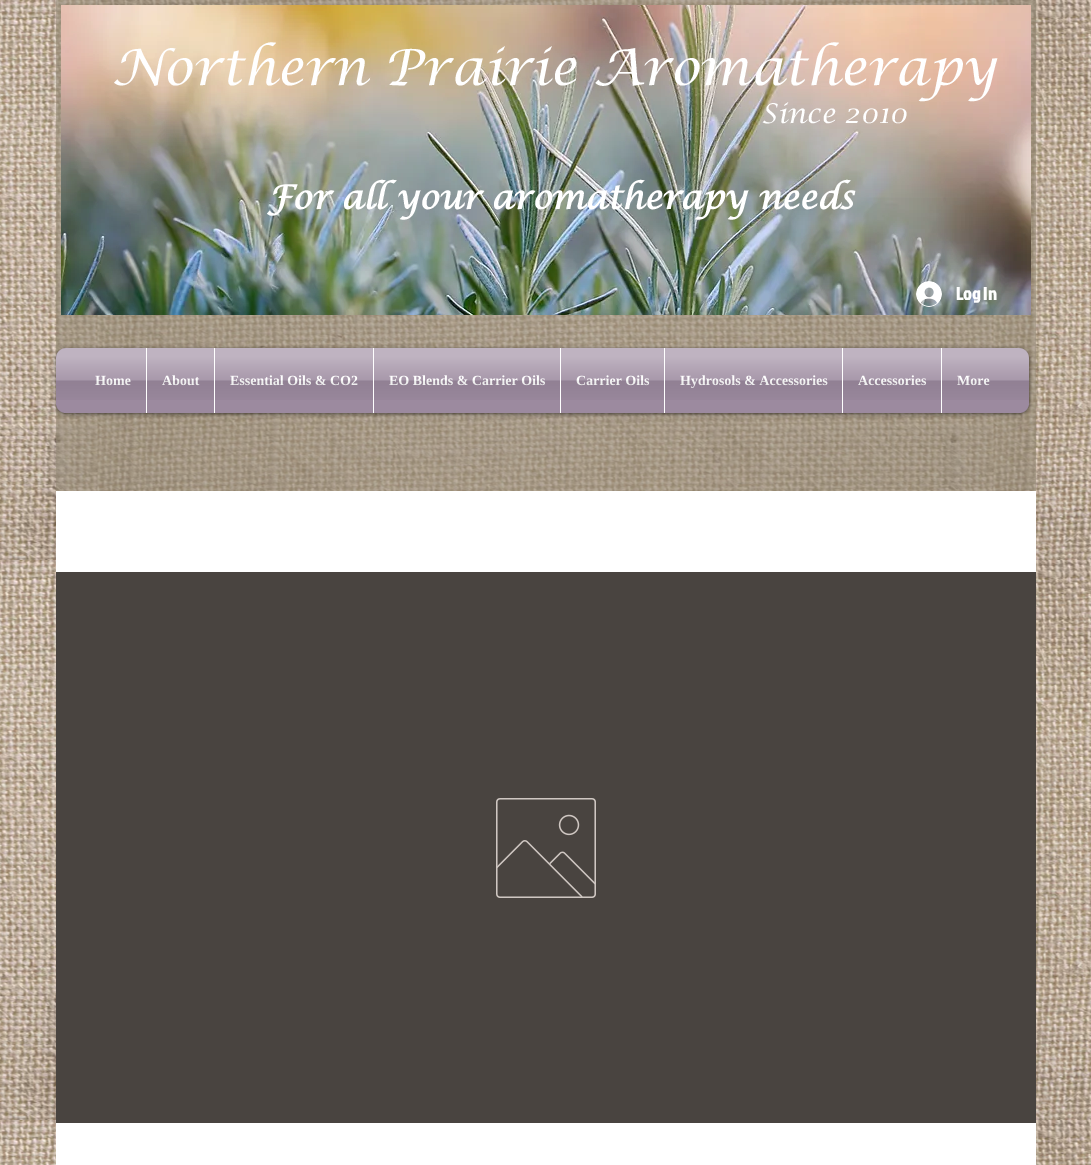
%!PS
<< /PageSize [1091 1165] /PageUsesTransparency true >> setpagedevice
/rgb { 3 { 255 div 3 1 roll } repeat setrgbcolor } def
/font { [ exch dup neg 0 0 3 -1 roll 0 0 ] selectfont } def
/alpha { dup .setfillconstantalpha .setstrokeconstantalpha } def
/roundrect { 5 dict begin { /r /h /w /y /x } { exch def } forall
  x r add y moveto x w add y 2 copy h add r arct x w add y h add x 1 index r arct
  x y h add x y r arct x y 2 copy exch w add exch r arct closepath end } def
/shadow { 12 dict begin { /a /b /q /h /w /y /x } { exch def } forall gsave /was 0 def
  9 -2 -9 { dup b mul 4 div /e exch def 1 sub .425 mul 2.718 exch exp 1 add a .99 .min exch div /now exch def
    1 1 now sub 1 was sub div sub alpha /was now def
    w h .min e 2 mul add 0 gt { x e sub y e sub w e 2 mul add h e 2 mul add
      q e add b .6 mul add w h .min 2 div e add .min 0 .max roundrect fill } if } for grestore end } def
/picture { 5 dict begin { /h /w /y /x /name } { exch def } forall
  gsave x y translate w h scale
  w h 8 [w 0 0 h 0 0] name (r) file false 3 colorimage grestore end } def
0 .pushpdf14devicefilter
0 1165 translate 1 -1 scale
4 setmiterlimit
255 255 255 rgb
0 0 1091 1165 rectfill
(img/1.rgb) 0 0 1091 1165 picture
0.6 alpha
147 136 116 rgb
56 0 980 431 rectfill
1 alpha
(img/2.rgb) 61 5 970 310 picture
(img/3.rgb) 916 281 26 26 picture
0 0 0 rgb
56 349 973 65 10 2 0.6 shadow
156 138 159 rgb
56 348 973 65 10 roundrect fill
(img/4.rgb) 56 348 973 52 picture
[
  [80 348 66 52 156 138 159]
  [147 348 67 52 156 138 159]
  [146 348 1 65 255 255 255]
  [215 348 158 52 156 138 159]
  [214 348 1 65 255 255 255]
  [374 348 186 52 156 138 159]
  [373 348 1 65 255 255 255]
  [561 348 103 52 156 138 159]
  [560 348 1 65 255 255 255]
  [665 348 177 52 156 138 159]
  [664 348 1 65 255 255 255]
  [843 348 98 52 156 138 159]
  [842 348 1 65 255 255 255]
  [942 348 62 52 156 138 159]
  [941 348 1 65 255 255 255]
] { aload pop rgb rectfill } forall
0.6 alpha
[
  [56 431 980 60 147 136 116]
] { aload pop rgb rectfill } forall
1 alpha
[
  [56 491 980 674 255 255 255]
  [56 572 980 551 73 68 64]
] { aload pop rgb rectfill } forall
(img/13.rgb) 496 798 100 100 picture
/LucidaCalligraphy-Regular 50 font
255 255 255 rgb
112 85 moveto (Northern Prairie Aromatherapy) show
/LucidaCalligraphy-Regular 27 font
761 123 moveto (Since 2010) show
/LucidaCalligraphy-Bold 33 font
267 209 moveto (For all your aromatherapy needs) show
/JockeyOne-Bold 18 font
956 300 moveto (Log In) show
/LiberationSerif-Bold 14 font
95 385 moveto (Home) show
(img/5.rgb) 80 348 66 52 picture
162 385 moveto (About) show
(img/6.rgb) 147 348 67 52 picture
230 385 moveto (Essential Oils & CO2) show
(img/7.rgb) 215 348 158 52 picture
389 385 moveto (EO Blends & Carrier Oils) show
(img/8.rgb) 374 348 186 52 picture
576 385 moveto (Carrier Oils) show
(img/9.rgb) 561 348 103 52 picture
680 385 moveto (Hydrosols & Accessories) show
(img/10.rgb) 665 348 177 52 picture
858 385 moveto (Accessories) show
(img/11.rgb) 843 348 98 52 picture
957 385 moveto (More) show
(img/12.rgb) 942 348 62 52 picture
.poppdf14devicefilter showpage
